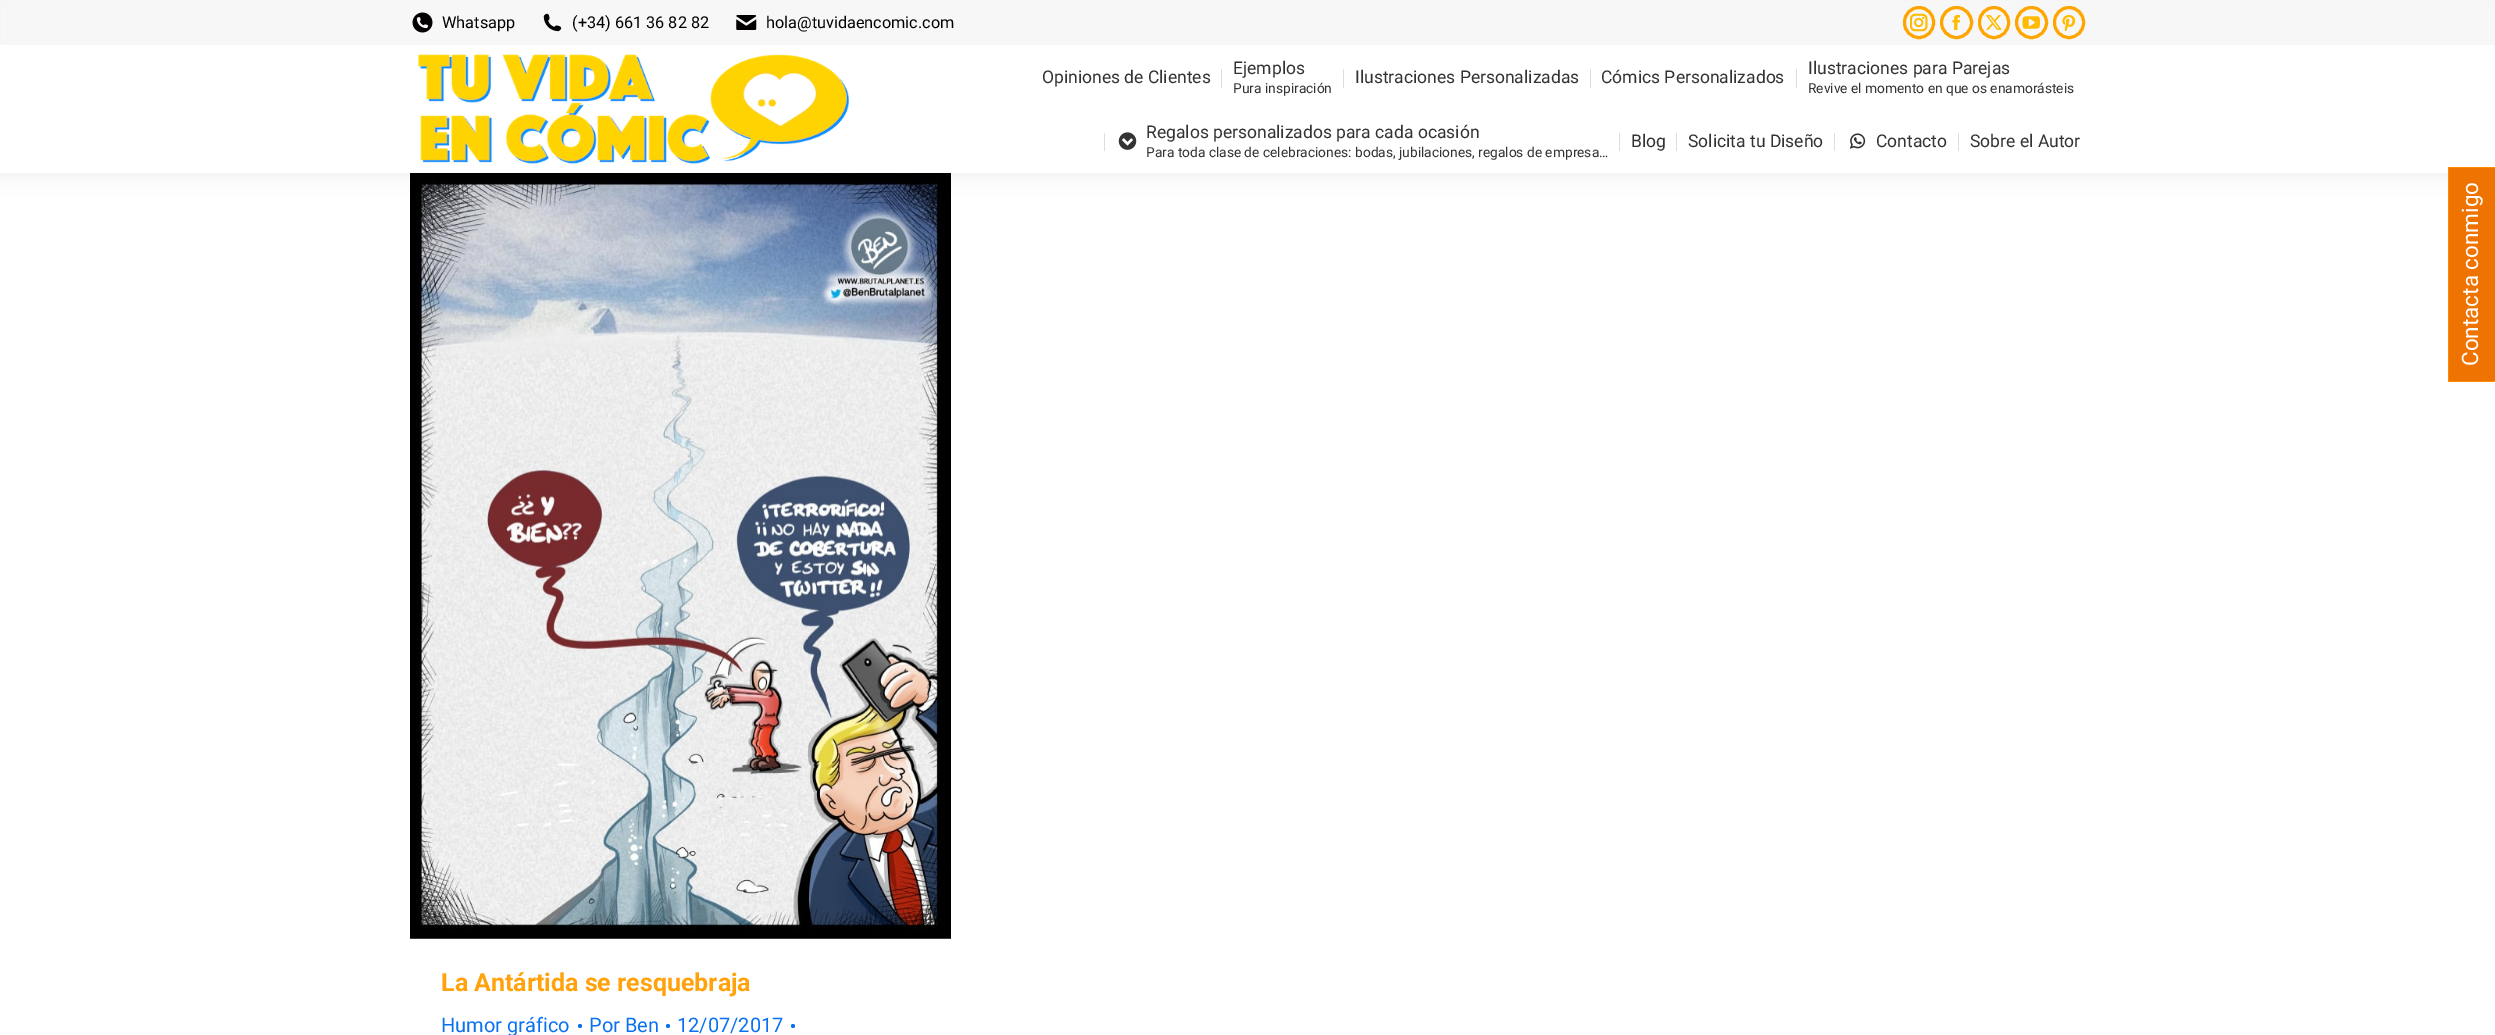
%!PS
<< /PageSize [2495 1035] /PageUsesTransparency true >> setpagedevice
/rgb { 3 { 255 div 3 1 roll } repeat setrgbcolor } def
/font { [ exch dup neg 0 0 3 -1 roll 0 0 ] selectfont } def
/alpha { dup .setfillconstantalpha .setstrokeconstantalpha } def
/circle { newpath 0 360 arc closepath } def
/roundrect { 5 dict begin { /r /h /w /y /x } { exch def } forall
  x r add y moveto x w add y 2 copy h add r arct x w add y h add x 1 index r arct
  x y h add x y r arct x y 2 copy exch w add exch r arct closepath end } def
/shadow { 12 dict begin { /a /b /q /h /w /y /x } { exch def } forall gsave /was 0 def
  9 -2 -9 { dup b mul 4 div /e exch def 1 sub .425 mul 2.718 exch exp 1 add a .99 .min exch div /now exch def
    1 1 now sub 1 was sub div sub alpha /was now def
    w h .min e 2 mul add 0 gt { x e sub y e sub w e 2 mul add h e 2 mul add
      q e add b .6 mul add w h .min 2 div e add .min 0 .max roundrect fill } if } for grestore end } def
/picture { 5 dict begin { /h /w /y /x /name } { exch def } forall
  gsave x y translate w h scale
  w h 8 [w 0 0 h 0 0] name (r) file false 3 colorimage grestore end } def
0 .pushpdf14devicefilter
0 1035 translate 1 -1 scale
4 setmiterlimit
255 255 255 rgb
0 0 2495 1035 rectfill
(img/12.rgb) 410 173 541 766 picture
0 0 0 rgb
-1 -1 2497 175 0 9.5 0.07 shadow
255 255 255 rgb
0 45 2495 128 rectfill
247 247 247 rgb
1 1 2493 44 rectfill
(img/1.rgb) 412 12 21 21 picture
(img/2.rgb) 543 13 19 19 picture
(img/3.rgb) 736 15 21 15 picture
255 165 0 rgb
3 setlinewidth
1904.5 7.5 29 30 14.5 roundrect stroke
(img/4.rgb) 1910 13 18 19 picture
1956.5 22.5 15 circle stroke
(img/5.rgb) 1952 15 8 15 picture
1979.5 7.5 29 30 14.5 roundrect stroke
(img/6.rgb) 1985 15 17 15 picture
2031.5 22.5 15 circle stroke
(img/7.rgb) 2022 16 18 13 picture
2054.5 7.5 29 30 14.5 roundrect stroke
(img/8.rgb) 2062 15 14 17 picture
(img/9.rgb) 418 54 431 110 picture
[
  [1221 69 1 19 222 222 222]
  [1343 69 1 19 222 222 222]
  [1590 69 1 19 222 222 222]
  [1796 69 1 19 222 222 222]
  [1104 133 1 18 222 222 222]
] { aload pop rgb rectfill } forall
(img/10.rgb) 1118 132 19 18 picture
[
  [1619 133 1 18 222 222 222]
  [1676 133 1 18 222 222 222]
  [1834 133 1 18 222 222 222]
] { aload pop rgb rectfill } forall
(img/11.rgb) 1849 133 17 16 picture
1958 133 1 18 rectfill
11 114 238 rgb
580 1026 2 circle fill
668 1026 2 circle fill
793 1026 2 circle fill
[
  [2449 168 46 213 239 115 0]
  [2448 167 1 215 255 140 0]
  [2448 167 47 1 255 140 0]
  [2448 381 47 1 255 140 0]
] { aload pop rgb rectfill } forall
/Roboto-Regular 16.25 font
2 0 0 rgb
[
  [(Whatsapp) 442 28]
  [(\(+34\) 661 36 82 82) 572 28]
  [(hola@tuvidaencomic.com) 766 28]
] { aload pop moveto show } forall
/Roboto-Regular 17.5 font
51 51 51 rgb
1042 83 moveto (Opiniones de Clientes) show
1233 74 moveto (Ejemplos) show
/Roboto-Regular 13.75 font
1233 93 moveto (Pura inspiración) show
/Roboto-Regular 17.5 font
[
  [(Ilustraciones Personalizadas) 1355 83]
  [(Cómics Personalizados) 1601 83]
  [(Ilustraciones para Parejas) 1808 74]
] { aload pop moveto show } forall
/Roboto-Regular 13.75 font
1808 93 moveto (Revive el momento en que os enamorásteis) show
/Roboto-Regular 17.5 font
1146 138 moveto (Regalos personalizados para cada ocasión) show
/Roboto-Regular 13.75 font
1146 157 moveto (Para toda clase de celebraciones: bodas, jubilaciones, regalos de empresa…) show
/Roboto-Regular 17.5 font
[
  [(Blog) 1631 147]
  [(Solicita tu Diseño) 1688 147]
  [(Contacto) 1876 147]
  [(Sobre el Autor) 1970 147]
] { aload pop moveto show } forall
/Roboto-Bold 25 font
255 162 12 rgb
441 991 moveto (La Antártida se resquebraja) show
/Roboto-Regular 20 font
11 114 238 rgb
[
  [(Humor gráfico) 441 1032]
  [(Por Ben) 589 1032]
  [(12/07/2017) 677 1032]
] { aload pop moveto show } forall
/Roboto-Regular 22.5 font
255 255 255 rgb
gsave 2478 366 translate -90 rotate 0 0 moveto (Contacta conmigo) show grestore
.poppdf14devicefilter showpage
